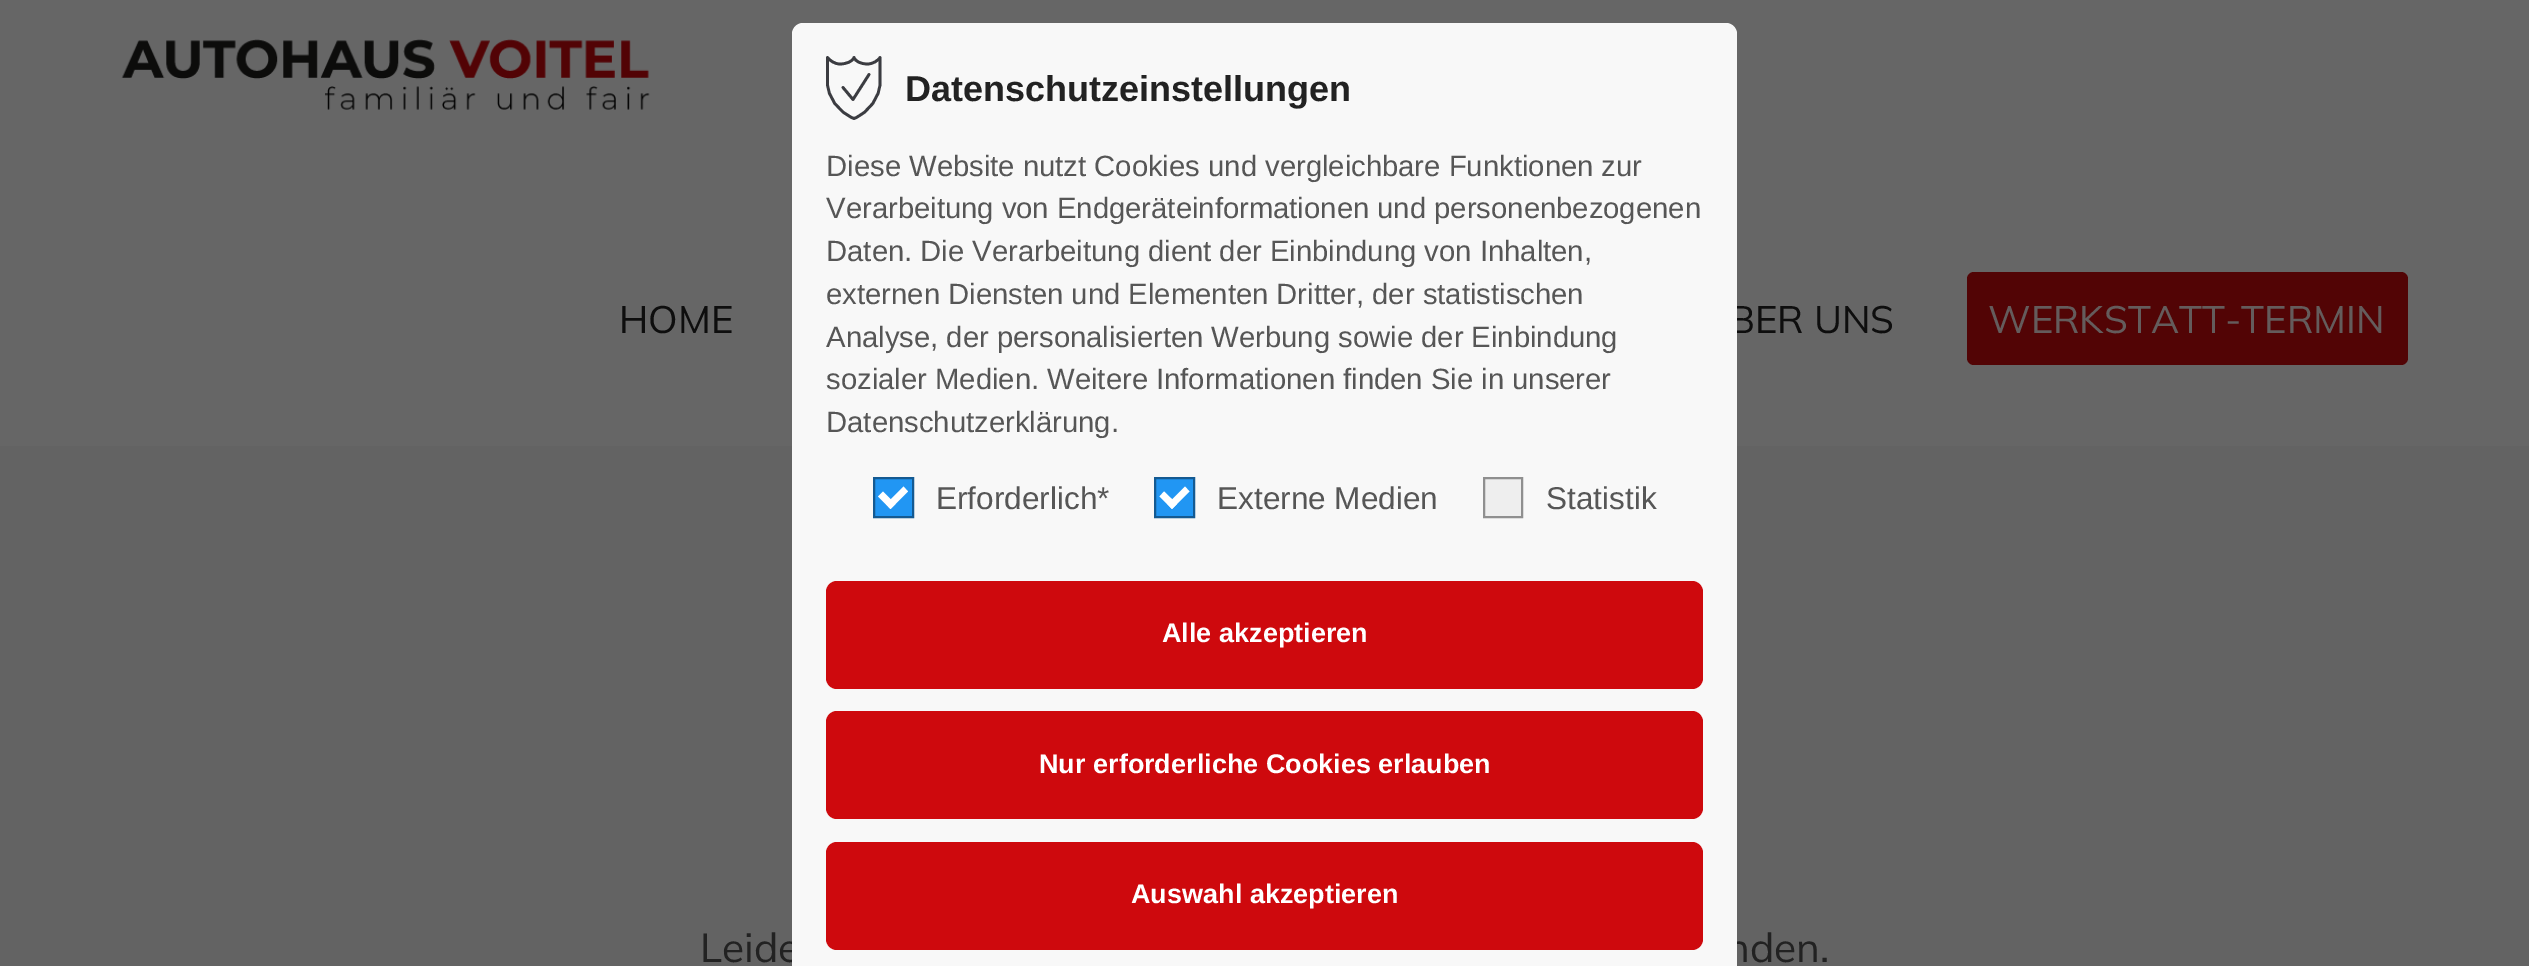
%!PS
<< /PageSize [2529 966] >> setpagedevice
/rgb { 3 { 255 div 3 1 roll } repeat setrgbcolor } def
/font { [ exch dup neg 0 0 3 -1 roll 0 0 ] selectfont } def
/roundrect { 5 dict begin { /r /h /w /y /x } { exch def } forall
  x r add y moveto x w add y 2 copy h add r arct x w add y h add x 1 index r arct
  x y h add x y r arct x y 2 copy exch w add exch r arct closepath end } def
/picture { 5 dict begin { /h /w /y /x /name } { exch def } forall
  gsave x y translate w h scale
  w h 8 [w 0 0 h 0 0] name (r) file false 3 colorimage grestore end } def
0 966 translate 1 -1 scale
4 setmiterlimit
102 102 102 rgb
0 0 2529 966 rectfill
(img/1.rgb) 121 39 529 71 picture
82 4 5 rgb
1967 272 441 93 7 roundrect fill
99 99 99 rgb
0 446 2529 520 rectfill
/Mulish-ExtraLight 38.25 font
14 14 14 rgb
619 333 moveto (HOME) show
1729 333 moveto (BER UNS) show
100 92 92 rgb
1988 333 moveto (WERKSTATT-TERMIN) show
/Mulish-ExtraLight 40.5 font
34 34 34 rgb
700 962 moveto (Leide) show
1726 962 moveto (nden.) show
248 248 248 rgb
803 23 moveto 1726 23 lineto 1732 23 1737 28 1737 34 curveto 1737 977 lineto 792 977 lineto 792 34 lineto 792 28 797 23 803 23 curveto closepath fill
206 9 13 rgb
826 842 877 108 11 roundrect fill
/LiberationSans-Bold 27 font
255 255 255 rgb
1131 903 moveto (Auswahl akzeptieren) show
206 9 13 rgb
826 711 877 108 11 roundrect fill
255 255 255 rgb
1039 773 moveto (Nur erforderliche Cookies erlauben) show
206 9 13 rgb
826 581 877 108 11 roundrect fill
255 255 255 rgb
1162 642 moveto (Alle akzeptieren) show
238 238 238 rgb
1484 478 moveto 1522 478 lineto 1522 517 lineto 1484 517 lineto closepath gsave fill grestore
143 143 143 rgb
2 setlinewidth
stroke
/LiberationSans-Regular 31.5 font
86 86 86 rgb
1546 509 moveto (Statistik) show
33 150 243 rgb
1155 478 moveto 1194 478 lineto 1194 517 lineto 1155 517 lineto closepath gsave fill grestore
20 90 146 rgb
stroke
255 255 255 rgb
1185 486.5 moveto 1189.5 491.5 lineto 1172 509 lineto 1167.5 504 lineto closepath fill
1164 491.5 moveto 1177 504 lineto 1172 509 lineto 1159.5 496.5 lineto closepath fill
86 86 86 rgb
1217 509 moveto (Externe Medien) show
33 150 243 rgb
874 478 moveto 913 478 lineto 913 517 lineto 874 517 lineto closepath gsave fill grestore
20 90 146 rgb
stroke
255 255 255 rgb
903.5 486.5 moveto 908 491.5 lineto 890.5 509 lineto 886 504 lineto closepath fill
883 491.5 moveto 895.5 504 lineto 890.5 509 lineto 878 496.5 lineto closepath fill
86 86 86 rgb
936 509 moveto (Erforderlich*) show
/LiberationSans-Regular 29.25 font
[
  [(Datenschutzerklärung.) 826 432]
  [(sozialer Medien. Weitere Informationen finden Sie in unserer) 826 389]
  [(Analyse, der personalisierten Werbung sowie der Einbindung) 826 347]
  [(externen Diensten und Elementen Dritter, der statistischen) 826 304]
  [(Daten. Die Verarbeitung dient der Einbindung von Inhalten,) 826 261]
  [(Verarbeitung von Endgeräteinformationen und personenbezogenen) 826 218]
  [(Diese Website nutzt Cookies und vergleichbare Funktionen zur) 826 176]
] { aload pop moveto show } forall
/LiberationSans-Bold 36 font
34 34 34 rgb
905 101 moveto (Datenschutzeinstellungen) show
59 60 65 rgb
2.7 setlinewidth
1 setlinecap
1 setlinejoin
854 118.5 moveto 838 112 827.5 97 827.5 82.5 curveto 827.5 57.5 lineto 830 60.5 834.5 64 840 64 curveto 846.5 64 852.5 61.5 854 57.5 curveto 855.5 61.5 861 64 867.5 64 curveto 873 64 878 60.5 880 57.5 curveto 880 82.5 lineto 880 97 869.5 112 854 118.5 curveto closepath stroke
843 87.5 moveto 853 99.5 lineto 869 74.5 lineto stroke
showpage
